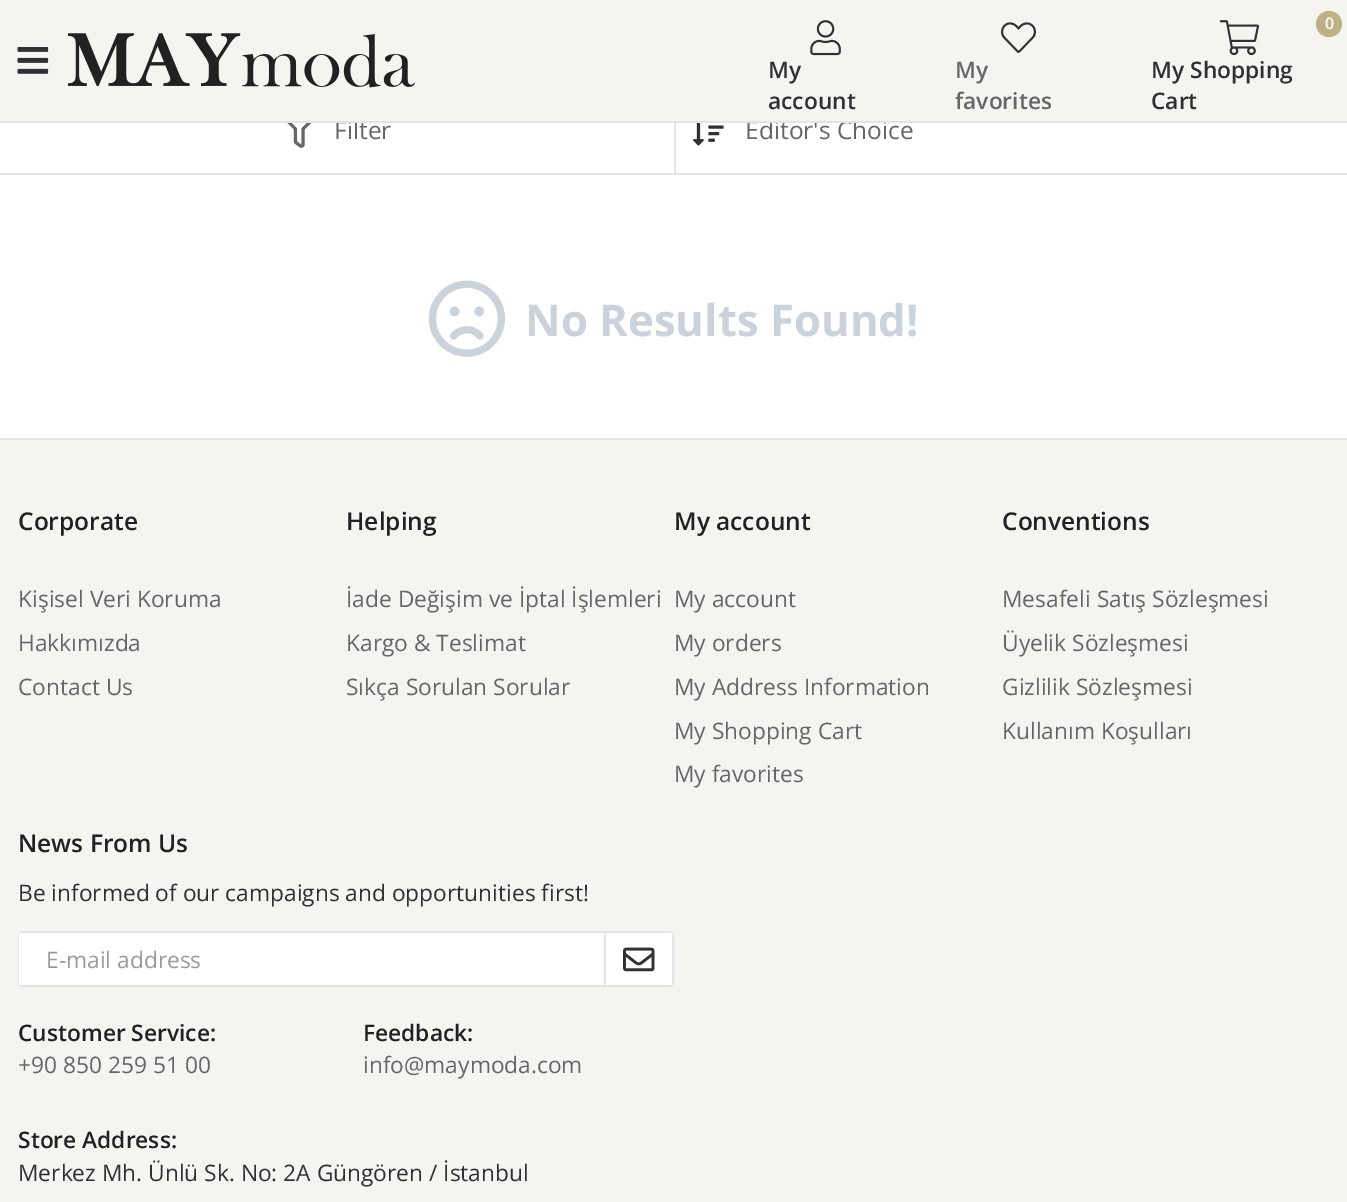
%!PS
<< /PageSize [1347 1202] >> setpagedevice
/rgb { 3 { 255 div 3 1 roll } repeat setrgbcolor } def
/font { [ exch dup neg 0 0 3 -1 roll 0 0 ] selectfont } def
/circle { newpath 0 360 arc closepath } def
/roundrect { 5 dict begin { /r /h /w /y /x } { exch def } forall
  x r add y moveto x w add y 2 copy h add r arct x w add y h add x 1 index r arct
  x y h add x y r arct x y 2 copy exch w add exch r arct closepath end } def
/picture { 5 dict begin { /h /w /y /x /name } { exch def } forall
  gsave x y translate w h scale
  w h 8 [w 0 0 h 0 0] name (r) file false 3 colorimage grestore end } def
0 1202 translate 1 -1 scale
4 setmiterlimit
255 255 255 rgb
0 0 1347 1202 rectfill
226 230 235 rgb
0 173 1347 2 rectfill
674 123 2 50 rectfill
(img/6.rgb) 287 123 25 25 picture
(img/7.rgb) 693 123 31 23 picture
(img/8.rgb) 428 280 77 77 picture
245 244 241 rgb
0 440 1347 762 rectfill
228 228 228 rgb
0 438 1347 2 rectfill
2 setlinewidth
19 932 654 54 4 roundrect stroke
[
  [19 933 585 52 255 255 255]
  [606 933 66 52 255 255 255]
  [604 933 2 52 228 228 228]
] { aload pop rgb rectfill } forall
(img/9.rgb) 623 947 32 25 picture
/OpenSans-Regular 24.5 font
102 102 102 rgb
334 139 moveto (Filter) show
745 139 moveto (Editor's Choice) show
245 244 241 rgb
0 0 1347 121 rectfill
191 177 133 rgb
1329 24 13 circle fill
/OpenSans-SemiBold 16 font
255 255 255 rgb
1325 29 moveto (0) show
/OpenSans-SemiBold 22.75 font
48 48 48 rgb
1151 109 moveto (Cart) show
1151 78 moveto (My Shopping) show
(img/5.rgb) 1219 20 41 36 picture
102 102 102 rgb
955 109 moveto (favorites) show
955 78 moveto (My) show
(img/4.rgb) 1001 22 35 31 picture
48 48 48 rgb
768 109 moveto (account) show
768 78 moveto (My) show
(img/3.rgb) 810 20 31 36 picture
(img/1.rgb) 17 47 32 27 picture
(img/2.rgb) 67 33 348 55 picture
228 228 228 rgb
0 121 1347 2 rectfill
/OpenSans-Bold 43.75 font
202 211 220 rgb
525 336 moveto (No Results Found!) show
/OpenSans-SemiBold 24.5 font
33 33 33 rgb
18 530 moveto (Corporate) show
/OpenSans-Regular 22.75 font
102 102 102 rgb
[
  [(Kişisel Veri Koruma) 18 607]
  [(Hakkımızda) 18 651]
  [(Contact Us) 18 695]
] { aload pop moveto show } forall
/OpenSans-SemiBold 24.5 font
33 33 33 rgb
346 530 moveto (Helping) show
/OpenSans-Regular 22.75 font
102 102 102 rgb
[
  [(İade Değişim ve İptal İşlemleri) 346 607]
  [(Kargo & Teslimat) 346 651]
  [(Sıkça Sorulan Sorular) 346 695]
] { aload pop moveto show } forall
/OpenSans-SemiBold 24.5 font
33 33 33 rgb
674 530 moveto (My account) show
/OpenSans-Regular 22.75 font
102 102 102 rgb
[
  [(My account) 674 607]
  [(My orders) 674 651]
  [(My Address Information) 674 695]
  [(My Shopping Cart) 674 739]
  [(My favorites) 674 782]
] { aload pop moveto show } forall
/OpenSans-SemiBold 24.5 font
33 33 33 rgb
1002 530 moveto (Conventions) show
/OpenSans-Regular 22.75 font
102 102 102 rgb
[
  [(Mesafeli Satış Sözleşmesi) 1002 607]
  [(Üyelik Sözleşmesi) 1002 651]
  [(Gizlilik Sözleşmesi) 1002 695]
  [(Kullanım Koşulları) 1002 739]
] { aload pop moveto show } forall
/OpenSans-SemiBold 24.5 font
33 33 33 rgb
18 852 moveto (News From Us) show
/OpenSans-Regular 22.75 font
48 48 48 rgb
18 901 moveto (Be informed of our campaigns and opportunities first!) show
154 154 154 rgb
46 968 moveto (E-mail address) show
/OpenSans-SemiBold 22.75 font
33 33 33 rgb
18 1041 moveto (Customer Service:) show
/OpenSans-Regular 22.75 font
102 102 102 rgb
18 1073 moveto (+90 850 259 51 00) show
/OpenSans-SemiBold 22.75 font
33 33 33 rgb
363 1041 moveto (Feedback:) show
/OpenSans-Regular 22.75 font
102 102 102 rgb
363 1073 moveto (info@maymoda.com) show
/OpenSans-SemiBold 22.75 font
33 33 33 rgb
18 1148 moveto (Store Address:) show
/OpenSans-Regular 22.75 font
48 48 48 rgb
18 1181 moveto (Merkez Mh. Ünlü Sk. No: 2A Güngören / İstanbul) show
showpage
